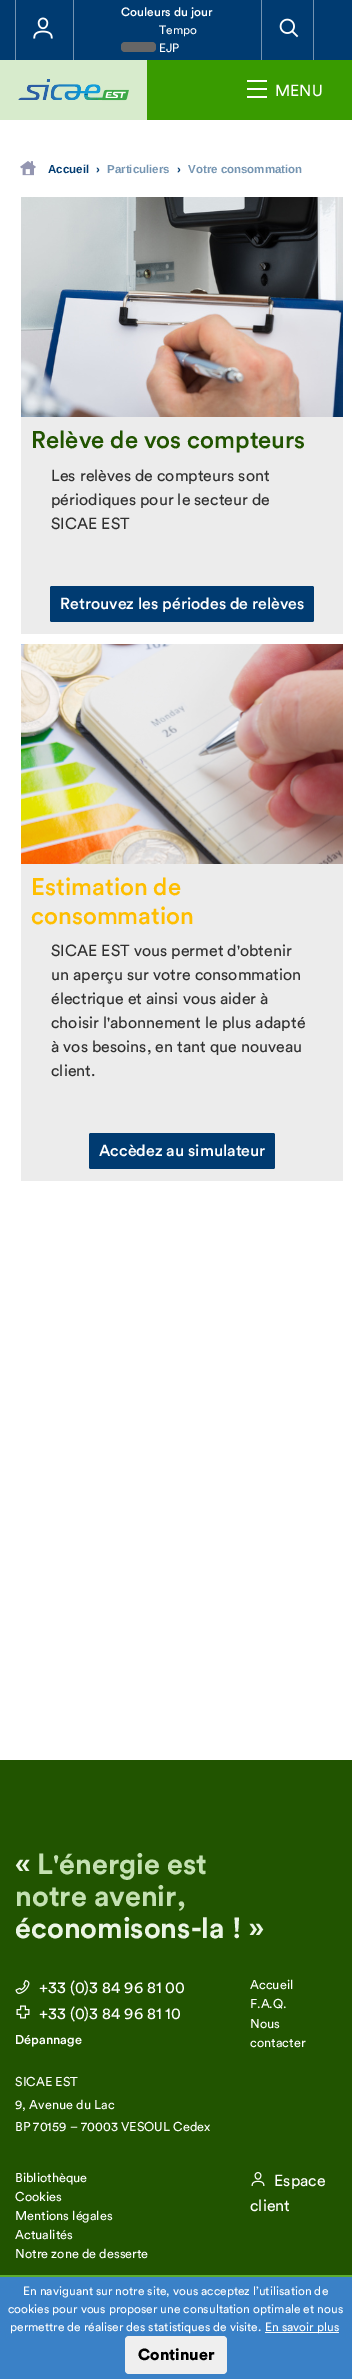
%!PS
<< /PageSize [352 2379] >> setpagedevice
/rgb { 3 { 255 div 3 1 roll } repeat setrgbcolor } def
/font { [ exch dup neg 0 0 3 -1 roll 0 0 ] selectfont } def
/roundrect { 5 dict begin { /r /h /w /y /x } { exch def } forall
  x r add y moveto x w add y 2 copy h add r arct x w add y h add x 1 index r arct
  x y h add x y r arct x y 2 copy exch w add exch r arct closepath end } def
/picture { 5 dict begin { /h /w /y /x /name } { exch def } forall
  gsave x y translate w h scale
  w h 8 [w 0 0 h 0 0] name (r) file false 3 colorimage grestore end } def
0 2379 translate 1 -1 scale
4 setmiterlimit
255 255 255 rgb
0 0 352 2379 rectfill
0 59 113 rgb
0 0 352 60 rectfill
115 147 177 rgb
15 0 1 60 rectfill
(img/1.rgb) 33 17 20 22 picture
73 0 1 60 rectfill
102 102 102 rgb
121 42 35 10 4 roundrect fill
115 147 177 rgb
313 0 1 60 rectfill
261 0 1 60 rectfill
(img/2.rgb) 279 18 20 20 picture
57 155 0 rgb
147 60 205 60 rectfill
215 235 204 rgb
0 60 147 60 rectfill
(img/3.rgb) 18 79 111 22 picture
[
  [247 80 20 2 255 255 255]
  [247 88 20 2 255 255 255]
  [247 96 20 2 255 255 255]
] { aload pop rgb rectfill } forall
(img/4.rgb) 20 161 16 15 picture
236 236 236 rgb
21 417 322 217 rectfill
(img/5.rgb) 21 197 322 220 picture
0 59 113 rgb
50 586 264 36 2 roundrect fill
236 236 236 rgb
21 864 322 317 rectfill
(img/6.rgb) 21 644 322 220 picture
0 59 113 rgb
89 1133 186 36 2 roundrect fill
33 84 0 rgb
0 1760 352 515 rectfill
(img/7.rgb) 15 1980 15 14 picture
(img/8.rgb) 16 2005 14 14 picture
(img/9.rgb) 251 2172 14 14 picture
[
  [0 2277 352 102 58 129 199]
  [0 2275 352 2 92 173 45]
  [265 2332 74 1 255 255 255]
] { aload pop rgb rectfill } forall
239 239 239 rgb
125 2336 102 38 4 roundrect fill
/Circular-Medium 12 font
255 255 255 rgb
121 16 moveto (Couleurs du jour) show
/Circular-Regular 12 font
159 34 moveto (Tempo) show
159 52 moveto (EJP) show
/Circular-Regular 16 font
275 96 moveto (MENU) show
/LiberationSans-Bold 11.5 font
0 59 113 rgb
48 173 moveto (Accueil) show
96 173 moveto (›) show
117 149 178 rgb
107 173 moveto (Particuliers) show
0 59 113 rgb
177 173 moveto (›) show
117 149 178 rgb
188 173 moveto (Votre consommation) show
/Circular-Medium 24 font
33 84 0 rgb
31 448 moveto (Relève de vos compteurs) show
/Circular-Regular 16 font
48 48 48 rgb
[
  [(Les relèves de compteurs sont) 51 481]
  [(périodiques pour le secteur de) 51 505]
  [(SICAE EST) 51 529]
] { aload pop moveto show } forall
/Circular-Medium 16 font
255 255 255 rgb
60 609 moveto (Retrouvez les périodes de relèves) show
/Circular-Medium 24 font
255 190 0 rgb
31 895 moveto (Estimation de) show
31 924 moveto (consommation) show
/Circular-Regular 16 font
48 48 48 rgb
[
  [(SICAE EST vous permet d'obtenir) 51 956]
  [(un aperçu sur votre consommation) 51 980]
  [(électrique et ainsi vous aider à) 51 1004]
  [(choisir l'abonnement le plus adapté) 51 1028]
  [(à vos besoins, en tant que nouveau) 51 1052]
  [(client.) 51 1076]
] { aload pop moveto show } forall
/Circular-Medium 16 font
255 255 255 rgb
99 1156 moveto (Accèdez au simulateur) show
/Circular-Bold 28.75 font
235 245 229 rgb
15 1874 moveto («) show
196 225 178 rgb
37 1874 moveto (L'énergie est) show
15 1906 moveto (notre avenir,) show
235 245 229 rgb
15 1938 moveto (économisons-la ! ») show
/Circular-Regular 16 font
255 255 255 rgb
39 1993 moveto (+33 \(0\)3 84 96 81 00) show
39 2019 moveto (+33 \(0\)3 84 96 81 10) show
/Circular-Medium 12.75 font
15 2044 moveto (Dépannage) show
/Circular-Regular 12.75 font
[
  [(SICAE EST) 15 2086]
  [(9, Avenue du Lac) 15 2109]
  [(BP 70159 – 70003 VESOUL Cedex) 15 2131]
  [(Accueil) 250 1989]
  [(F.A.Q.) 250 2008]
  [(Nous) 250 2028]
  [(contacter) 250 2047]
  [(Bibliothèque) 15 2182]
  [(Cookies) 15 2201]
  [(Mentions légales) 15 2220]
  [(Actualités) 15 2239]
  [(Notre zone de desserte) 15 2258]
] { aload pop moveto show } forall
/Circular-Regular 16 font
274 2186 moveto (Espace) show
250 2211 moveto (client) show
/Circular-Regular 12 font
[
  [(En naviguant sur notre site, vous acceptez l’utilisation de) 23 2295]
  [(cookies pour vous proposer une consultation optimale et nous) 8 2313]
  [(permettre de réaliser des statistiques de visite.) 10 2331]
  [(En savoir plus) 265 2331]
] { aload pop moveto show } forall
/Circular-Black 16 font
0 0 0 rgb
138 2360 moveto (Continuer) show
showpage
